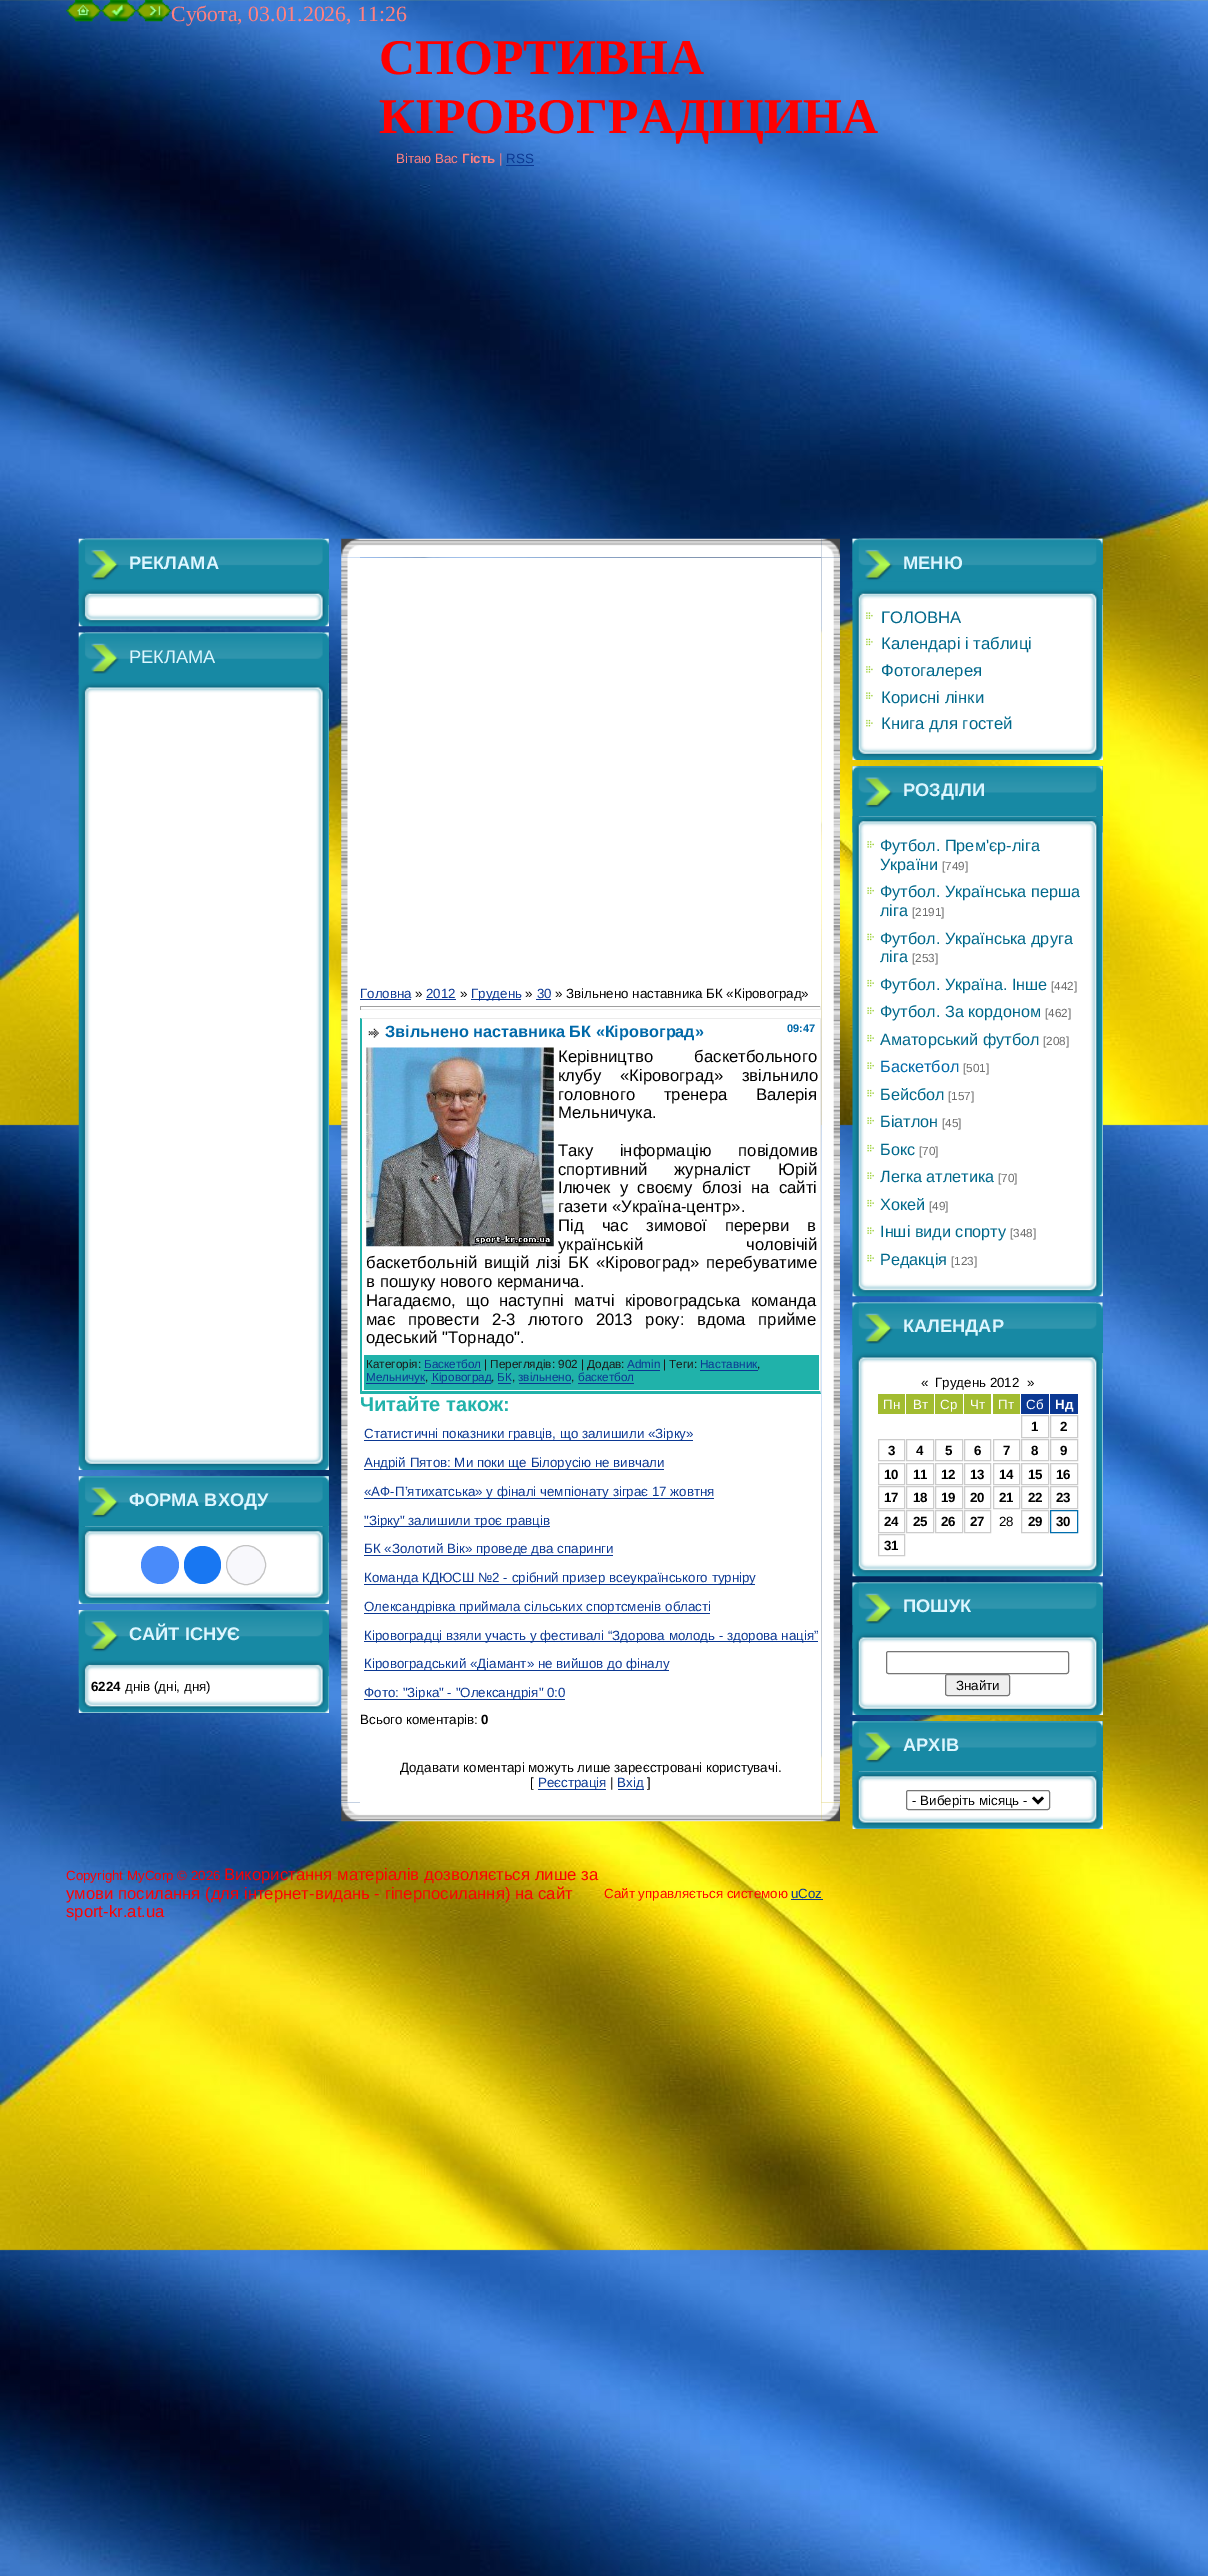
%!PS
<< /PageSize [1208 2576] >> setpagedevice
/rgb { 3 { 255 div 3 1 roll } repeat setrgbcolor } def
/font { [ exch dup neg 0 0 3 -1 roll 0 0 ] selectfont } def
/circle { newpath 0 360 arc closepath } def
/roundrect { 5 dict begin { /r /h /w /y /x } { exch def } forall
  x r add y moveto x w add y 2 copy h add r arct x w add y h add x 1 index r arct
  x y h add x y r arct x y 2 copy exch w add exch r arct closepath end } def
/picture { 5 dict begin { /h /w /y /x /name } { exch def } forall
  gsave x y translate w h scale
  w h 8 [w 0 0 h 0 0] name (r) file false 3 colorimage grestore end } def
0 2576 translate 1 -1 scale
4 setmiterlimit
255 255 255 rgb
0 0 1208 2576 rectfill
(img/1.rgb) 0 0 1208 2576 picture
(img/2.rgb) 66 0 36 22 picture
(img/3.rgb) 101 0 36 22 picture
(img/4.rgb) 136 0 36 22 picture
11 56 147 rgb
506 165 28 1 rectfill
(img/5.rgb) 78 538 251 89 picture
23 137 164 rgb
80 539 249 50 rectfill
(img/6.rgb) 78 538 251 43 picture
(img/7.rgb) 78 589 251 16 picture
(img/8.rgb) 78 632 251 838 picture
80 633 249 50 rectfill
(img/9.rgb) 78 632 251 43 picture
(img/10.rgb) 78 682 251 17 picture
255 255 255 rgb
79 1526 250 78 rectfill
(img/11.rgb) 78 1476 251 128 picture
23 137 164 rgb
79 1476 250 50 rectfill
(img/12.rgb) 78 1476 251 43 picture
(img/13.rgb) 78 1526 251 17 picture
73 139 250 rgb
160 1565 19 circle fill
24 119 242 rgb
184 1546 37 38 18.5 roundrect fill
248 248 252 rgb
246 1565 19.5 circle gsave fill grestore
196 196 196 rgb
stroke
255 255 255 rgb
79 1660 250 53 rectfill
(img/14.rgb) 78 1610 251 103 picture
23 137 164 rgb
80 1610 249 50 rectfill
(img/15.rgb) 78 1610 251 42 picture
(img/16.rgb) 78 1660 251 17 picture
(img/20.rgb) 341 557 19 1246 picture
(img/17.rgb) 341 538 19 20 picture
(img/18.rgb) 360 538 462 20 picture
(img/23.rgb) 821 557 19 1246 picture
(img/19.rgb) 821 538 19 20 picture
[
  [360 558 461 1245 255 255 255]
  [360 999 51 1 11 56 147]
  [426 999 30 1 11 56 147]
  [471 999 50 1 11 56 147]
  [536 999 15 1 11 56 147]
  [360 1006 461 1 159 159 159]
  [820 1006 1 4 238 238 238]
  [360 1009 461 1 238 238 238]
  [360 1006 1 4 159 159 159]
] { aload pop rgb rectfill } forall
235 235 235 rgb
360 1018 moveto 821 1018 lineto 820 1019 lineto 362 1019 lineto closepath fill
821 1018 moveto 821 1394 lineto 820 1391 lineto 820 1019 lineto closepath fill
32 178 170 rgb
821 1394 moveto 360 1394 lineto 362 1391 lineto 820 1391 lineto closepath fill
360 1394 moveto 360 1018 lineto 362 1019 lineto 362 1391 lineto closepath fill
(img/21.rgb) 368 1028 11 10 picture
(img/22.rgb) 366 1047 188 200 picture
[
  [364 1355 455 35 32 178 170]
  [424 1370 57 1 11 56 147]
  [628 1370 32 1 11 56 147]
  [700 1370 58 1 11 56 147]
  [366 1383 59 1 11 56 147]
  [431 1383 60 1 11 56 147]
  [498 1383 13 1 11 56 147]
  [519 1383 52 1 11 56 147]
  [578 1383 56 1 11 56 147]
  [364 1440 329 1 11 56 147]
  [364 1469 300 1 11 56 147]
  [364 1498 350 1 11 56 147]
  [364 1526 186 1 11 56 147]
  [364 1555 249 1 11 56 147]
  [364 1584 391 1 11 56 147]
  [364 1613 346 1 11 56 147]
  [364 1641 454 1 11 56 147]
  [364 1670 305 1 11 56 147]
  [364 1699 201 1 11 56 147]
  [538 1789 68 1 11 56 147]
  [618 1789 26 1 11 56 147]
] { aload pop rgb rectfill } forall
(img/24.rgb) 341 1802 19 20 picture
(img/25.rgb) 360 1802 462 20 picture
(img/26.rgb) 821 1802 19 20 picture
255 255 255 rgb
1102 589 1 171 rectfill
(img/27.rgb) 852 538 251 222 picture
23 137 164 rgb
854 539 249 50 rectfill
(img/28.rgb) 852 538 251 44 picture
(img/29.rgb) 852 588 251 17 picture
(img/30.rgb) 866 612 7 7 picture
(img/31.rgb) 866 638 7 8 picture
(img/32.rgb) 866 666 7 7 picture
(img/30.rgb) 866 692 7 7 picture
(img/33.rgb) 866 719 7 8 picture
255 255 255 rgb
1102 816 1 480 rectfill
(img/34.rgb) 852 766 251 531 picture
23 137 164 rgb
853 766 250 50 rectfill
(img/35.rgb) 852 766 251 43 picture
(img/36.rgb) 852 816 251 17 picture
(img/37.rgb) 867 841 7 7 picture
(img/38.rgb) 867 887 7 7 picture
(img/39.rgb) 867 933 7 8 picture
(img/40.rgb) 867 979 7 8 picture
(img/38.rgb) 867 1007 7 7 picture
(img/40.rgb) 867 1034 7 8 picture
(img/38.rgb) 867 1062 7 7 picture
(img/40.rgb) 867 1089 7 8 picture
(img/38.rgb) 867 1117 7 7 picture
(img/40.rgb) 867 1144 7 8 picture
(img/41.rgb) 867 1172 7 7 picture
(img/40.rgb) 867 1199 7 8 picture
(img/38.rgb) 867 1227 7 7 picture
(img/40.rgb) 867 1254 7 8 picture
255 255 255 rgb
1102 1353 1 223 rectfill
(img/42.rgb) 852 1302 251 275 picture
23 137 164 rgb
854 1303 249 50 rectfill
(img/43.rgb) 852 1302 251 43 picture
(img/44.rgb) 852 1352 251 17 picture
[
  [878 1394 27 20 162 188 48]
  [906 1394 28 20 162 188 48]
  [935 1394 28 20 162 188 48]
  [964 1394 27 20 162 188 48]
  [993 1394 27 20 162 188 48]
  [1021 1394 28 20 11 56 147]
  [1050 1394 28 20 11 56 147]
] { aload pop rgb rectfill } forall
204 204 204 rgb
1021.5 1415.5 27 22 rectstroke
1050.5 1415.5 27 22 rectstroke
878.5 1439.5 26 21 rectstroke
906.5 1439.5 27 21 rectstroke
935.5 1439.5 27 21 rectstroke
964.5 1439.5 26 21 rectstroke
993.5 1439.5 26 21 rectstroke
1021.5 1439.5 27 21 rectstroke
1050.5 1439.5 27 21 rectstroke
878.5 1463.5 26 21 rectstroke
906.5 1463.5 27 21 rectstroke
935.5 1463.5 27 21 rectstroke
964.5 1463.5 26 21 rectstroke
993.5 1463.5 26 21 rectstroke
1021.5 1463.5 27 21 rectstroke
1050.5 1463.5 27 21 rectstroke
878.5 1486.5 26 22 rectstroke
906.5 1486.5 27 22 rectstroke
935.5 1486.5 27 22 rectstroke
964.5 1486.5 26 22 rectstroke
993.5 1486.5 26 22 rectstroke
1021.5 1486.5 27 22 rectstroke
1050.5 1486.5 27 22 rectstroke
878.5 1510.5 26 22 rectstroke
906.5 1510.5 27 22 rectstroke
935.5 1510.5 27 22 rectstroke
964.5 1510.5 26 22 rectstroke
1021.5 1510.5 27 22 rectstroke
1 110 173 rgb
1050.5 1510.5 27 22 rectstroke
204 204 204 rgb
878.5 1534.5 26 21 rectstroke
255 255 255 rgb
1102 1633 1 82 rectfill
(img/45.rgb) 852 1582 251 133 picture
23 137 164 rgb
854 1583 249 50 rectfill
(img/46.rgb) 852 1582 251 43 picture
(img/47.rgb) 852 1632 251 17 picture
118 118 118 rgb
886.5 1651.5 182 22 2 roundrect stroke
239 239 239 rgb
945.5 1674.5 64 21 2 roundrect gsave fill grestore
118 118 118 rgb
stroke
255 255 255 rgb
853 1771 250 58 rectfill
(img/48.rgb) 852 1721 251 108 picture
23 137 164 rgb
853 1721 250 50 rectfill
(img/49.rgb) 852 1721 251 43 picture
(img/50.rgb) 852 1771 251 17 picture
118 118 118 rgb
906.5 1790.5 143 19 2 roundrect stroke
0 0 0 rgb
2.5 setlinewidth
1033 1797.5 moveto 1038 1802.5 lineto 1043 1797.5 lineto stroke
11 56 147 rgb
791 1899 32 1 rectfill
/LiberationSerif-Regular 21.75 font
255 128 128 rgb
171 21 moveto (Субота, 03.01.2026, 11:26) show
/LiberationSerif-Bold 50 font
255 0 0 rgb
379 74 moveto (СПОРТИВНА) show
379 133 moveto (КІРОВОГРАДЩИНА) show
/LiberationSans-Regular 13.35 font
255 128 128 rgb
396 163 moveto (Вітаю Вас) show
/LiberationSans-Bold 13.35 font
462 163 moveto (Гість) show
/LiberationSans-Regular 13.35 font
499 163 moveto (|) show
11 56 147 rgb
506 163 moveto (RSS) show
/LiberationSans-Bold 18.25 font
220 246 255 rgb
129 569 moveto (РЕКЛАМА) show
/LiberationSans-Regular 18.25 font
129 663 moveto (РЕКЛАМА) show
/LiberationSans-Bold 18.25 font
129 1506 moveto (ФОРМА ВХОДУ) show
129 1640 moveto (САЙТ ІСНУЄ) show
/LiberationSans-Bold 13.35 font
0 0 0 rgb
91 1691 moveto (6224) show
/LiberationSans-Regular 13.35 font
125 1691 moveto (днів \(дні, дня\)) show
11 56 147 rgb
360 998 moveto (Головна) show
0 0 0 rgb
415 998 moveto (») show
11 56 147 rgb
426 998 moveto (2012) show
0 0 0 rgb
460 998 moveto (») show
11 56 147 rgb
471 998 moveto (Грудень) show
0 0 0 rgb
525 998 moveto (») show
11 56 147 rgb
537 998 moveto (30) show
0 0 0 rgb
555 998 moveto (» Звільнено наставника БК «Кіровоград») show
/LiberationSans-Bold 16.25 font
0 105 169 rgb
385 1037 moveto (Звільнено наставника БК «Кіровоград») show
/LiberationSans-Bold 11 font
787 1032 moveto (09:47) show
/LiberationSans-Regular 16.7 font
0 0 0 rgb
558 1062 moveto 37 0 32 (Керівництво баскетбольного) widthshow
558 1081 moveto 14 0 32 (клубу «Кіровоград» звільнило) widthshow
558 1100 moveto 24 0 32 (головного тренера Валерія) widthshow
558 1118 moveto (Мельничука.) show
558 1156 moveto 22 0 32 (Таку інформацію повідомив) widthshow
558 1175 moveto 22 0 32 (спортивний журналіст Юрій) widthshow
558 1193 moveto 4.75 0 32 (Ілючек у своєму блозі на сайті) widthshow
558 1212 moveto (газети «Україна-центр».) show
558 1231 moveto 13.5 0 32 (Під час зимової перерви в) widthshow
558 1250 moveto 98 0 32 (українській чоловічій) widthshow
366 1268 moveto 2.5 0 32 (баскетбольній вищій лізі БК «Кіровоград» перебуватиме) widthshow
366 1287 moveto (в пошуку нового керманича.) show
366 1306 moveto 5.5 0 32 (Нагадаємо, що наступні матчі кіровоградська команда) widthshow
366 1325 moveto 8 0 32 (має провести 2-3 лютого 2013 року: вдома прийме) widthshow
366 1343 moveto (одеський "Торнадо".) show
/LiberationSans-Regular 11.75 font
26 26 26 rgb
366 1368 moveto (Категорія:) show
11 56 147 rgb
424 1368 moveto (Баскетбол) show
26 26 26 rgb
484 1368 moveto (| Переглядів: 902 | Додав:) show
11 56 147 rgb
627 1368 moveto (Admin) show
26 26 26 rgb
663 1368 moveto (| Теги:) show
11 56 147 rgb
700 1368 moveto (Наставник) show
26 26 26 rgb
757 1368 moveto (,) show
11 56 147 rgb
366 1381 moveto (Мельничук) show
26 26 26 rgb
425 1381 moveto (,) show
11 56 147 rgb
432 1381 moveto (Кіровоград) show
26 26 26 rgb
491 1381 moveto (,) show
11 56 147 rgb
497 1381 moveto (БК) show
26 26 26 rgb
512 1381 moveto (,) show
11 56 147 rgb
518 1381 moveto (звільнено) show
26 26 26 rgb
571 1381 moveto (,) show
11 56 147 rgb
578 1381 moveto (баскетбол) show
/LiberationSans-Bold 20 font
32 178 170 rgb
360 1411 moveto (Читайте також:) show
/LiberationSans-Regular 13.35 font
11 56 147 rgb
[
  [(Статистичні показники гравців, що залишили «Зірку») 364 1438]
  [(Андрій Пятов: Ми поки ще Білорусію не вивчали) 364 1467]
  [(«АФ-П’ятихатська» у фіналі чемпіонату зіграє 17 жовтня) 364 1496]
  [("Зірку" залишили троє гравців) 364 1525]
  [(БК «Золотий Вік» проведе два спаринги) 364 1553]
  [(Команда КДЮСШ №2 - срібний призер всеукраїнського турніру) 364 1582]
  [(Олександрівка приймала сільських спортсменів області) 364 1611]
  [(Кіровоградці взяли участь у фестивалі “Здорова молодь - здорова нація”) 364 1640]
  [(Кіровоградський «Діамант» не вийшов до фіналу) 364 1668]
  [(Фото: "Зірка" - "Олександрія" 0:0) 364 1697]
] { aload pop moveto show } forall
0 0 0 rgb
360 1724 moveto (Всього коментарів:) show
/LiberationSans-Bold 13.35 font
481 1724 moveto (0) show
/LiberationSans-Regular 13.35 font
400 1772 moveto (Додавати коментарі можуть лише зареєстровані користувачі.) show
530 1787 moveto ([) show
11 56 147 rgb
538 1787 moveto (Реєстрація) show
0 0 0 rgb
610 1787 moveto (|) show
11 56 147 rgb
617 1787 moveto (Вхід) show
0 0 0 rgb
647 1787 moveto (]) show
/LiberationSans-Bold 18.25 font
220 246 255 rgb
903 569 moveto (МЕНЮ) show
/LiberationSans-Regular 16.7 font
0 104 139 rgb
[
  [(ГОЛОВНА) 881 623]
  [(Календарі і таблиці) 881 649]
  [(Фотогалерея) 881 676]
  [(Корисні лінки) 881 703]
  [(Книга для гостей) 881 729]
] { aload pop moveto show } forall
/LiberationSans-Bold 18.25 font
220 246 255 rgb
903 796 moveto (РОЗДІЛИ) show
/LiberationSans-Regular 16.25 font
0 104 139 rgb
880 851 moveto (Футбол. Прем'єр-ліга) show
880 870 moveto (України) show
/LiberationSans-Regular 11.75 font
110 110 110 rgb
942 870 moveto ([749]) show
/LiberationSans-Regular 16.25 font
0 104 139 rgb
880 897 moveto (Футбол. Українська перша) show
880 916 moveto (ліга) show
/LiberationSans-Regular 11.75 font
110 110 110 rgb
912 916 moveto ([2191]) show
/LiberationSans-Regular 16.25 font
0 104 139 rgb
880 944 moveto (Футбол. Українська друга) show
880 962 moveto (ліга) show
/LiberationSans-Regular 11.75 font
110 110 110 rgb
912 962 moveto ([253]) show
/LiberationSans-Regular 16.25 font
0 104 139 rgb
880 990 moveto (Футбол. Україна. Інше) show
/LiberationSans-Regular 11.75 font
110 110 110 rgb
1051 990 moveto ([442]) show
/LiberationSans-Regular 16.25 font
0 104 139 rgb
880 1017 moveto (Футбол. За кордоном) show
/LiberationSans-Regular 11.75 font
110 110 110 rgb
1045 1017 moveto ([462]) show
/LiberationSans-Regular 16.25 font
0 104 139 rgb
880 1045 moveto (Аматорський футбол) show
/LiberationSans-Regular 11.75 font
110 110 110 rgb
1043 1045 moveto ([208]) show
/LiberationSans-Regular 16.25 font
0 105 169 rgb
880 1072 moveto (Баскетбол) show
/LiberationSans-Regular 11.75 font
110 110 110 rgb
963 1072 moveto ([501]) show
/LiberationSans-Regular 16.25 font
0 104 139 rgb
880 1100 moveto (Бейсбол) show
/LiberationSans-Regular 11.75 font
110 110 110 rgb
948 1100 moveto ([157]) show
/LiberationSans-Regular 16.25 font
0 104 139 rgb
880 1127 moveto (Біатлон) show
/LiberationSans-Regular 11.75 font
110 110 110 rgb
942 1127 moveto ([45]) show
/LiberationSans-Regular 16.25 font
0 104 139 rgb
880 1155 moveto (Бокс) show
/LiberationSans-Regular 11.75 font
110 110 110 rgb
919 1155 moveto ([70]) show
/LiberationSans-Regular 16.25 font
0 104 139 rgb
880 1182 moveto (Легка атлетика) show
/LiberationSans-Regular 11.75 font
110 110 110 rgb
998 1182 moveto ([70]) show
/LiberationSans-Regular 16.25 font
0 104 139 rgb
880 1210 moveto (Хокей) show
/LiberationSans-Regular 11.75 font
110 110 110 rgb
929 1210 moveto ([49]) show
/LiberationSans-Regular 16.25 font
0 104 139 rgb
880 1237 moveto (Інші види спорту) show
/LiberationSans-Regular 11.75 font
110 110 110 rgb
1010 1237 moveto ([348]) show
/LiberationSans-Regular 16.25 font
0 104 139 rgb
880 1265 moveto (Редакція) show
/LiberationSans-Regular 11.75 font
110 110 110 rgb
951 1265 moveto ([123]) show
/LiberationSans-Bold 18.25 font
220 246 255 rgb
903 1332 moveto (КАЛЕНДАР) show
/LiberationSans-Regular 13.35 font
0 0 0 rgb
[
  [(«) 921 1387]
  [(Грудень 2012) 935 1387]
  [(») 1027 1387]
] { aload pop moveto show } forall
255 255 255 rgb
[
  [(Пн) 883 1409]
  [(Вт) 913 1409]
  [(Ср) 940 1409]
  [(Чт) 970 1409]
  [(Пт) 998 1409]
  [(Сб) 1026 1409]
] { aload pop moveto show } forall
/LiberationSans-Bold 13.35 font
1055 1409 moveto (Нд) show
0 0 0 rgb
[
  [(1) 1031 1431]
  [(2) 1060 1431]
  [(3) 888 1455]
  [(4) 916 1455]
  [(5) 945 1455]
  [(6) 974 1455]
  [(7) 1003 1455]
  [(8) 1031 1455]
  [(9) 1060 1455]
  [(10) 884 1479]
  [(11) 913 1479]
  [(12) 941 1479]
  [(13) 970 1479]
  [(14) 999 1479]
  [(15) 1028 1479]
  [(16) 1056 1479]
  [(17) 884 1502]
  [(18) 913 1502]
  [(19) 941 1502]
  [(20) 970 1502]
  [(21) 999 1502]
  [(22) 1028 1502]
  [(23) 1056 1502]
  [(24) 884 1526]
  [(25) 913 1526]
  [(26) 941 1526]
  [(27) 970 1526]
] { aload pop moveto show } forall
/LiberationSans-Regular 13.35 font
999 1526 moveto (28) show
/LiberationSans-Bold 13.35 font
[
  [(29) 1028 1526]
  [(30) 1056 1526]
  [(31) 884 1550]
] { aload pop moveto show } forall
/LiberationSans-Bold 18.25 font
220 246 255 rgb
903 1612 moveto (ПОШУК) show
/LiberationSans-Regular 13.35 font
0 0 0 rgb
956 1690 moveto (Знайти) show
/LiberationSans-Bold 18.25 font
220 246 255 rgb
903 1751 moveto (АРХІВ) show
/LiberationSans-Regular 13.35 font
0 0 0 rgb
912 1805 moveto (- Виберіть місяць -) show
255 0 0 rgb
66 1880 moveto (Copyright MyCorp © 2026) show
/LiberationSans-Regular 16.7 font
[
  [(Використання матерiалiв дозволяється лише за) 224 1880]
  [(умови посилання \(для iнтернет-видань - гiперпосилання\) на сайт) 66 1899]
  [(sport-kr.at.ua) 66 1917]
] { aload pop moveto show } forall
/LiberationSans-Regular 13.35 font
604 1898 moveto (Сайт управляється системою) show
11 56 147 rgb
791 1898 moveto (uCoz) show
showpage
